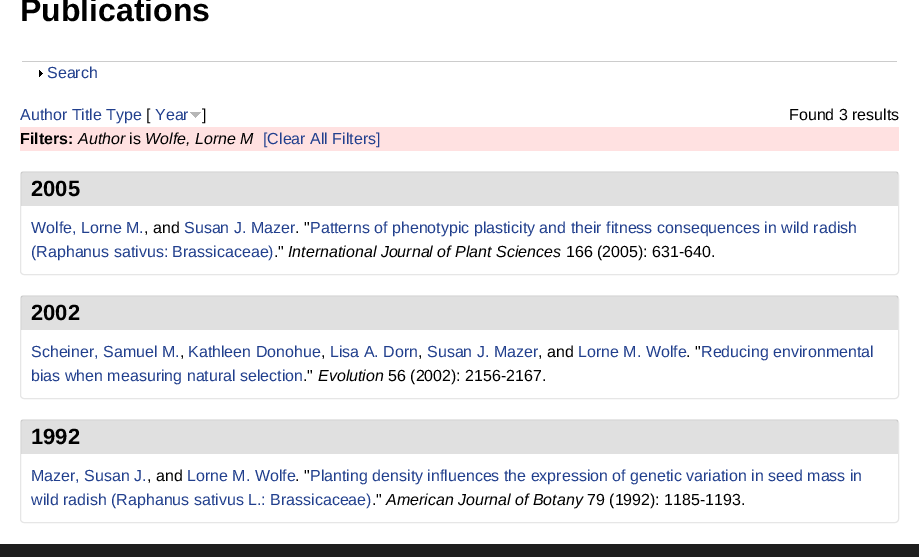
%!PS
<< /PageSize [919 557] /PageUsesTransparency true >> setpagedevice
/rgb { 3 { 255 div 3 1 roll } repeat setrgbcolor } def
/font { [ exch dup neg 0 0 3 -1 roll 0 0 ] selectfont } def
/alpha { dup .setfillconstantalpha .setstrokeconstantalpha } def
/roundrect { 5 dict begin { /r /h /w /y /x } { exch def } forall
  x r add y moveto x w add y 2 copy h add r arct x w add y h add x 1 index r arct
  x y h add x y r arct x y 2 copy exch w add exch r arct closepath end } def
/picture { 5 dict begin { /h /w /y /x /name } { exch def } forall
  gsave x y translate w h scale
  w h 8 [w 0 0 h 0 0] name (r) file false 3 colorimage grestore end } def
0 .pushpdf14devicefilter
0 557 translate 1 -1 scale
4 setmiterlimit
30 30 30 rgb
0 0 919 557 rectfill
255 255 255 rgb
0 0 919 544 rectfill
204 204 204 rgb
22 61 875 1 rectfill
(img/1.rgb) 39 70 4 7 picture
(img/2.rgb) 190 112 11 6 picture
255 225 225 rgb
20 127 879 24 rectfill
230 230 230 rgb
20.5 171.5 878 103 3.5 roundrect stroke
0.12 alpha
0 0 0 rgb
21 172 877 34 rectfill
1 alpha
230 230 230 rgb
20.5 295.5 878 103 3.5 roundrect stroke
0.12 alpha
0 0 0 rgb
21 296 877 34 rectfill
1 alpha
230 230 230 rgb
20.5 419.5 878 103 3.5 roundrect stroke
0.12 alpha
0 0 0 rgb
21 420 877 34 rectfill
/LiberationSans-Bold 32 font
1 alpha
20 21 moveto (Publications) show
/LiberationSans-Regular 16 font
33 63 141 rgb
47 78 moveto (Search) show
20 120 moveto (Author Title Type) show
0 0 0 rgb
146 120 moveto ([) show
33 63 141 rgb
155 120 moveto (Year) show
0 0 0 rgb
202 120 moveto (]) show
789 120 moveto (Found 3 results) show
/LiberationSans-Bold 16 font
20 144 moveto (Filters:) show
/LiberationSans-Italic 16 font
78 144 moveto (Author) show
/LiberationSans-Regular 16 font
129 144 moveto (is) show
/LiberationSans-Italic 16 font
145 144 moveto (Wolfe, Lorne M) show
/LiberationSans-Regular 16 font
33 63 141 rgb
263 144 moveto ([Clear All Filters]) show
/LiberationSans-Bold 22 font
0 0 0 rgb
31 196 moveto (2005) show
/LiberationSans-Regular 16 font
33 63 141 rgb
31 233 moveto (Wolfe, Lorne M.) show
0 0 0 rgb
144 233 moveto (, and) show
33 63 141 rgb
184 233 moveto (Susan J. Mazer) show
0 0 0 rgb
295 233 moveto (. ") show
33 63 141 rgb
310 233 moveto (Patterns of phenotypic plasticity and their fitness consequences in wild radish) show
31 257 moveto (\(Raphanus sativus: Brassicaceae\)) show
0 0 0 rgb
274 257 moveto (.") show
/LiberationSans-Italic 16 font
288 257 moveto (International Journal of Plant Sciences) show
/LiberationSans-Regular 16 font
566 257 moveto (166 \(2005\): 631-640.) show
/LiberationSans-Bold 22 font
31 320 moveto (2002) show
/LiberationSans-Regular 16 font
33 63 141 rgb
[
  [(Scheiner, Samuel M.) 31 357]
  [(Kathleen Donohue) 188 357]
  [(Lisa A. Dorn) 330 357]
  [(Susan J. Mazer) 427 357]
] { aload pop moveto show } forall
0 0 0 rgb
538 357 moveto (, and) show
33 63 141 rgb
578 357 moveto (Lorne M. Wolfe) show
0 0 0 rgb
686 357 moveto (. ") show
33 63 141 rgb
701 357 moveto (Reducing environmental) show
0 0 0 rgb
[
  [(,) 180 357]
  [(,) 321 357]
  [(,) 418 357]
] { aload pop moveto show } forall
33 63 141 rgb
31 381 moveto (bias when measuring natural selection) show
0 0 0 rgb
303 381 moveto (.") show
/LiberationSans-Italic 16 font
318 381 moveto (Evolution) show
/LiberationSans-Regular 16 font
388 381 moveto (56 \(2002\): 2156-2167.) show
/LiberationSans-Bold 22 font
31 444 moveto (1992) show
/LiberationSans-Regular 16 font
33 63 141 rgb
31 481 moveto (Mazer, Susan J.) show
0 0 0 rgb
147 481 moveto (, and) show
33 63 141 rgb
187 481 moveto (Lorne M. Wolfe) show
0 0 0 rgb
295 481 moveto (. ") show
33 63 141 rgb
310 481 moveto (Planting density influences the expression of genetic variation in seed mass in) show
31 505 moveto (wild radish \(Raphanus sativus L.: Brassicaceae\)) show
0 0 0 rgb
372 505 moveto (.") show
/LiberationSans-Italic 16 font
386 505 moveto (American Journal of Botany) show
/LiberationSans-Regular 16 font
587 505 moveto (79 \(1992\): 1185-1193.) show
.poppdf14devicefilter showpage
